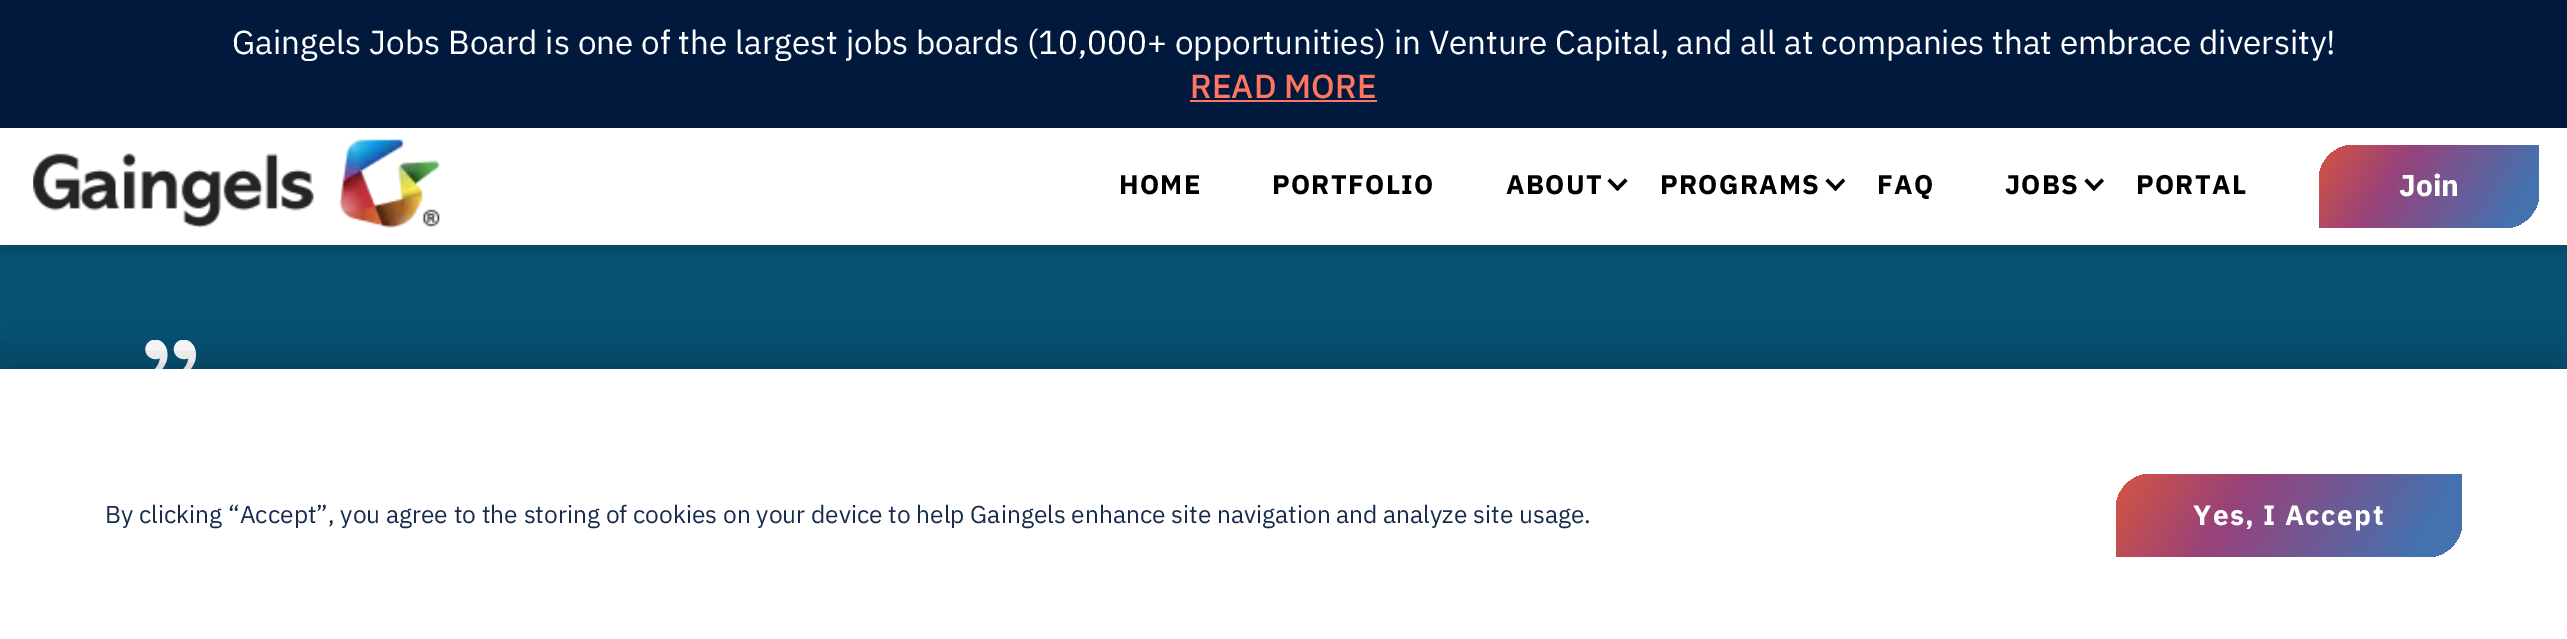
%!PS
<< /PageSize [2567 639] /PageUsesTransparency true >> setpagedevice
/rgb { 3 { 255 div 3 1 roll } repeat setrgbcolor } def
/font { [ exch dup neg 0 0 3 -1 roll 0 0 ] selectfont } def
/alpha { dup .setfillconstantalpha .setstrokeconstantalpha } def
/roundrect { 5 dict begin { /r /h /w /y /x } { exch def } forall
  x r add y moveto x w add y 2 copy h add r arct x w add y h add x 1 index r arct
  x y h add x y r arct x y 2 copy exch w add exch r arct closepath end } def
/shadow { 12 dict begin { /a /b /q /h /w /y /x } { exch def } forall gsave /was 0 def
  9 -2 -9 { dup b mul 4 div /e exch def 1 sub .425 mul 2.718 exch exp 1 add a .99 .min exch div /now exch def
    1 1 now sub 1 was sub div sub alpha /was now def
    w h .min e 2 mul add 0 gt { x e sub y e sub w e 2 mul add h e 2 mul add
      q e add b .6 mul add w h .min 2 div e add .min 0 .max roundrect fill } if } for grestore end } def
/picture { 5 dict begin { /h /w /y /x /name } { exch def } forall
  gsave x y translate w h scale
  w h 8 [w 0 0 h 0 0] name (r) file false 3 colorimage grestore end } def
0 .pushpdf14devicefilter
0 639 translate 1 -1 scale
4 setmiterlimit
6 81 114 rgb
0 0 2567 639 rectfill
0 0 0 rgb
0 135 2567 117 0 3.5 0.1 shadow
[
  [0 0 2567 128 0 25 61]
  [1190 100 187 2 255 117 96]
  [0 128 2567 117 255 255 255]
] { aload pop rgb rectfill } forall
(img/1.rgb) 33 138 407 90 picture
0 0 0 rgb
1625 178.5 moveto 1627.5 181 lineto 1617.5 191 lineto 1615 188.5 lineto closepath fill
1610 178.5 moveto 1620 188.5 lineto 1617.5 191 lineto 1607.5 181 lineto closepath fill
1843 178.5 moveto 1845 181 lineto 1835.5 191 lineto 1833 188.5 lineto closepath fill
1828 178.5 moveto 1838 188.5 lineto 1835.5 191 lineto 1825.5 181 lineto closepath fill
2101.5 178.5 moveto 2104 181 lineto 2094 191 lineto 2091.5 188.5 lineto closepath fill
2087 178.5 moveto 2096.5 188.5 lineto 2094 191 lineto 2084.5 181 lineto closepath fill
gsave 2354 145 moveto 2539 145 lineto 2539 193 lineto 2539 212.5 2523.5 228 2504 228 curveto 2319 228 lineto 2319 180 lineto 2319 160.5 2334.5 145 2354 145 curveto closepath clip newpath
<< /ShadingType 2 /ColorSpace /DeviceRGB /Coords [2307 112 2528 246] /Extend [true true] /Function << /FunctionType 3 /Domain [0 1] /Functions [<< /FunctionType 2 /Domain [0 1] /C0 [0.914 0.361 0.169] /C1 [0.596 0.259 0.482] /N 1 >> << /FunctionType 2 /Domain [0 1] /C0 [0.596 0.259 0.482] /C1 [0.267 0.447 0.686] /N 1 >> << /FunctionType 2 /Domain [0 1] /C0 [0.267 0.447 0.686] /C1 [0.267 0.447 0.686] /N 1 >>] /Bounds [0.41 0.88] /Encode [0 1 0 1 0 1] >> >> shfill grestore
(img/2.rgb) 145 340 51 29 picture
0 369 2567 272 0 24.5 0.27 shadow
255 255 255 rgb
0 369 2567 270 rectfill
gsave 2151 474 moveto 2462 474 lineto 2462 522 lineto 2462 541.5 2446.5 557 2427 557 curveto 2116 557 lineto 2116 509 lineto 2116 489.5 2131.5 474 2151 474 curveto closepath clip newpath
<< /ShadingType 2 /ColorSpace /DeviceRGB /Coords [2111 407 2434 603] /Extend [true true] /Function << /FunctionType 3 /Domain [0 1] /Functions [<< /FunctionType 2 /Domain [0 1] /C0 [0.914 0.361 0.169] /C1 [0.596 0.259 0.482] /N 1 >> << /FunctionType 2 /Domain [0 1] /C0 [0.596 0.259 0.482] /C1 [0.267 0.447 0.686] /N 1 >> << /FunctionType 2 /Domain [0 1] /C0 [0.267 0.447 0.686] /C1 [0.267 0.447 0.686] /N 1 >>] /Bounds [0.41 0.88] /Encode [0 1 0 1 0 1] >> >> shfill grestore
/IBMPlexSans-Regular 33.25 font
232 54 moveto (Gaingels Jobs Board is one of the largest jobs boards \(10,000+ opportunities\) in Venture Capital, and all at companies that embrace diversity!) show
/IBMPlexSans-Medium 33.25 font
255 117 96 rgb
1190 98 moveto (READ MORE) show
/IBMPlexSans-Bold 27 font
0 0 0 rgb
1119 194 moveto 1.25 0 (HOME) ashow
1272 194 moveto 1.25 0 (PORTFOLIO) ashow
1506 194 moveto 1.25 0 (ABOUT) ashow
1660 194 moveto 1.25 0 (PROGRAMS) ashow
1877 194 moveto 1.25 0 (FAQ) ashow
2005 194 moveto 1.25 0 (JOBS) ashow
2136 194 moveto 1.25 0 (PORTAL) ashow
/IBMPlexSans-Bold 30 font
255 255 255 rgb
2399 196 moveto (Join) show
/IBMPlexSans-Regular 24.5 font
23 43 77 rgb
105 523 moveto (By clicking “Accept”, you agree to the storing of cookies on your device to help Gaingels enhance site navigation and analyze site usage.) show
/IBMPlexSans-Bold 28 font
255 255 255 rgb
2193 525 moveto 1.4 0 (Yes, I Accept) ashow
.poppdf14devicefilter showpage
